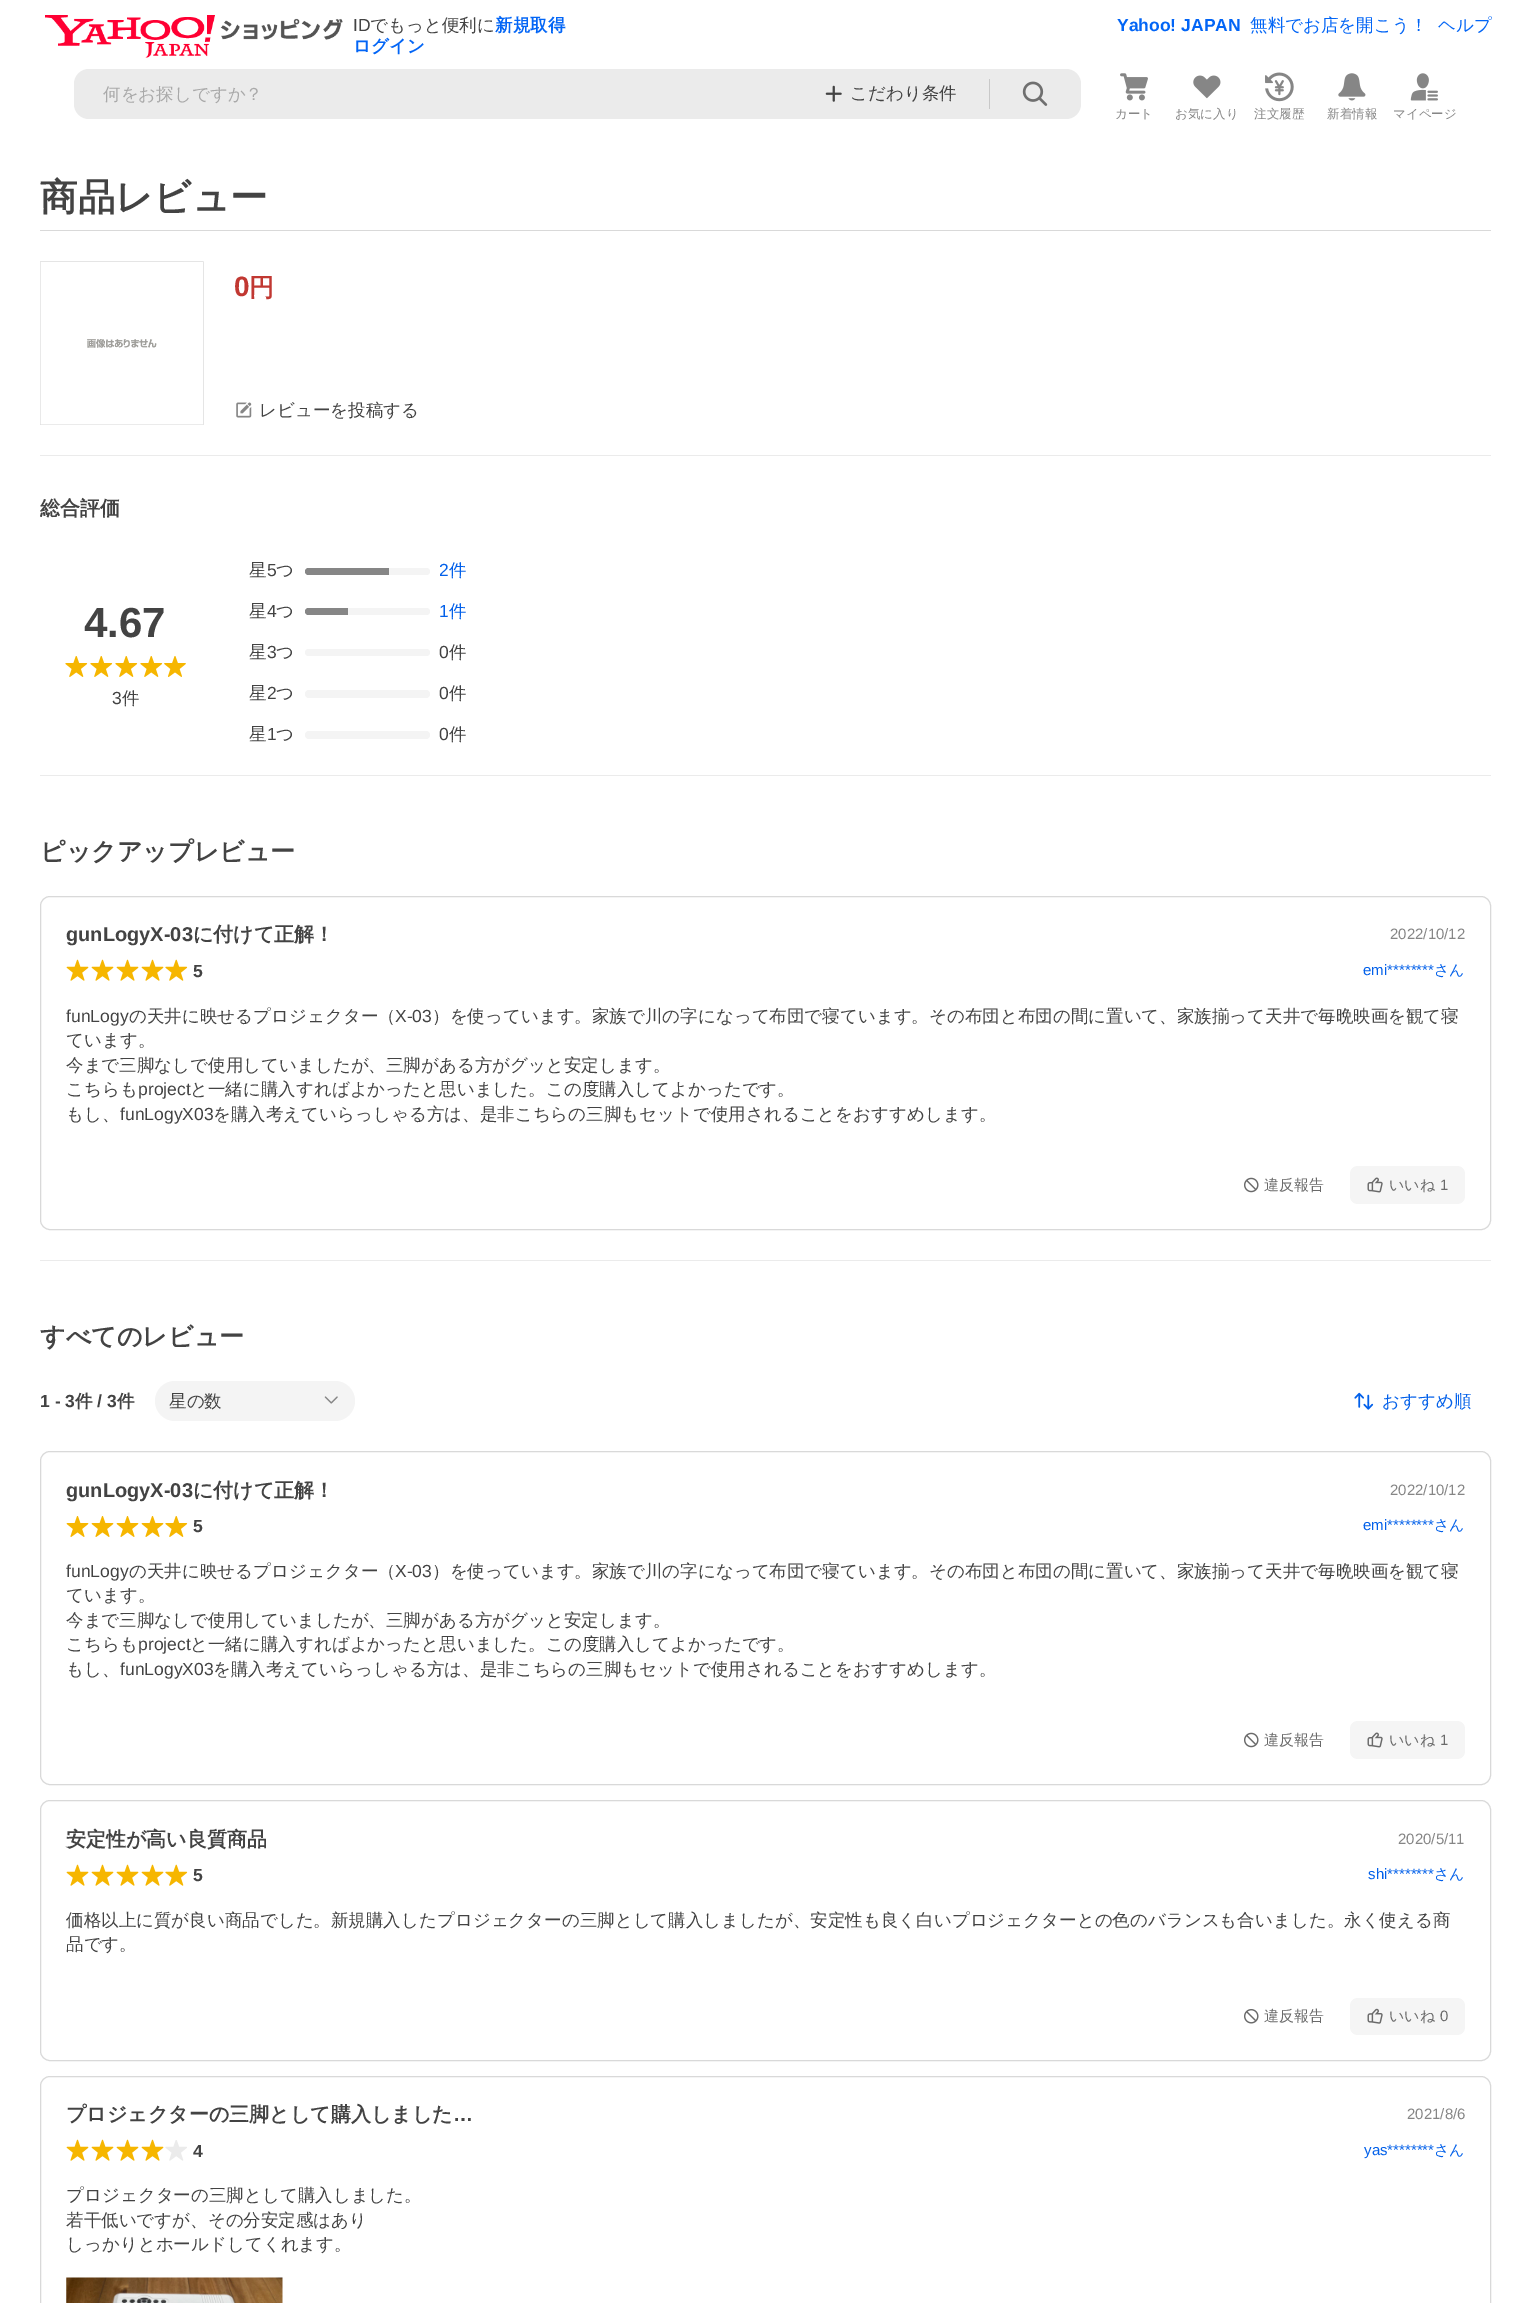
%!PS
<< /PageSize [1531 2303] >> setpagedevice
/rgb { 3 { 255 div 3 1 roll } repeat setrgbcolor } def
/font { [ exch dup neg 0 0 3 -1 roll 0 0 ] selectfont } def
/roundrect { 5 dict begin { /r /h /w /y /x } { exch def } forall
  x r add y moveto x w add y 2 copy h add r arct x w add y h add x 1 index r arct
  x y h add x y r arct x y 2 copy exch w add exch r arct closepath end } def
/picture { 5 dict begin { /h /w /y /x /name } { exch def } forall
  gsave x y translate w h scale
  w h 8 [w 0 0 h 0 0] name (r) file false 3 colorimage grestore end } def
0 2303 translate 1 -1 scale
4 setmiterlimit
255 255 255 rgb
0 0 1531 2303 rectfill
(img/1.rgb) 45 15 298 43 picture
235 235 235 rgb
74 69 1007 50 15 roundrect fill
(img/2.rgb) 825 85 17 17 picture
200 200 200 rgb
989 79 1 30 rectfill
(img/3.rgb) 1022 81 26 25 picture
(img/4.rgb) 1120 73 28 28 picture
(img/5.rgb) 1193 75 28 24 picture
(img/6.rgb) 1265 72 29 30 picture
(img/7.rgb) 1338 73 28 28 picture
(img/8.rgb) 1410 73 28 28 picture
217 217 217 rgb
40 230 1451 1 rectfill
(img/9.rgb) 40 261 164 164 picture
(img/10.rgb) 236 402 16 16 picture
235 235 235 rgb
40 455 1451 1 rectfill
(img/11.rgb) 65 656 23 21 picture
(img/11.rgb) 90 656 23 21 picture
(img/11.rgb) 115 656 23 21 picture
(img/11.rgb) 140 656 23 21 picture
(img/12.rgb) 164 656 22 21 picture
244 244 244 rgb
305 568 125 7 3.5 roundrect fill
134 134 134 rgb
308.5 568 moveto 389 568 lineto 389 575 lineto 308.5 575 lineto 306.5 575 305 573.5 305 571.5 curveto 305 569.5 306.5 568 308.5 568 curveto closepath fill
244 244 244 rgb
305 608 125 7 3.5 roundrect fill
134 134 134 rgb
308.5 608 moveto 348 608 lineto 348 615 lineto 308.5 615 lineto 306.5 615 305 613.5 305 611.5 curveto 305 609.5 306.5 608 308.5 608 curveto closepath fill
244 244 244 rgb
305 649 125 7 3.5 roundrect fill
305 690 125 8 4 roundrect fill
305 731 125 8 4 roundrect fill
235 235 235 rgb
40 775 1451 1 rectfill
217 217 217 rgb
40.5 896.5 1450 333 9.5 roundrect stroke
(img/13.rgb) 66 959 23 22 picture
(img/13.rgb) 91 959 23 22 picture
(img/13.rgb) 116 959 23 22 picture
(img/13.rgb) 141 959 23 22 picture
(img/14.rgb) 165 959 23 22 picture
(img/15.rgb) 1244 1177 15 16 picture
245 245 245 rgb
1350 1166 115 38 8 roundrect fill
(img/16.rgb) 1367 1177 16 16 picture
235 235 235 rgb
40 1260 1451 1 rectfill
244 244 244 rgb
155 1381 200 40 20 roundrect fill
(img/17.rgb) 324 1396 14 8 picture
(img/18.rgb) 1354 1392 20 18 picture
217 217 217 rgb
40.5 1451.5 1450 333 9.5 roundrect stroke
(img/19.rgb) 66 1516 23 21 picture
(img/19.rgb) 91 1516 23 21 picture
(img/19.rgb) 116 1516 23 21 picture
(img/19.rgb) 141 1516 23 21 picture
(img/11.rgb) 165 1516 23 21 picture
(img/15.rgb) 1244 1732 15 16 picture
245 245 245 rgb
1350 1721 115 38 8 roundrect fill
(img/16.rgb) 1367 1732 16 16 picture
217 217 217 rgb
40.5 1800.5 1450 260 9.5 roundrect stroke
(img/13.rgb) 66 1864 23 22 picture
(img/13.rgb) 91 1864 23 22 picture
(img/13.rgb) 116 1864 23 22 picture
(img/13.rgb) 141 1864 23 22 picture
(img/14.rgb) 165 1864 23 22 picture
(img/20.rgb) 1244 2009 15 15 picture
245 245 245 rgb
1350 1998 115 37 8 roundrect fill
(img/21.rgb) 1367 2008 16 16 picture
217 217 217 rgb
40.5 2076.5 1450 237 9.5 roundrect stroke
(img/13.rgb) 66 2139 23 22 picture
(img/13.rgb) 91 2139 23 22 picture
(img/13.rgb) 116 2139 23 22 picture
(img/13.rgb) 141 2139 23 22 picture
(img/22.rgb) 165 2140 22 21 picture
(img/23.rgb) 66 2277 217 26 picture
/LiberationSans-Regular 17.5 font
67 67 67 rgb
353 31 moveto (ID) show
/WenQuanYiZenHei-Medium 17.5 font
370 31 moveto (でもっと便利に) show
/WenQuanYiZenHei-Bold 17.5 font
2 101 246 rgb
495 31 moveto (新規取得) show
353 52 moveto (ログイン) show
/LiberationSans-Bold 17.5 font
1117 31 moveto (Yahoo! JAPAN) show
/WenQuanYiZenHei-Medium 17.5 font
1250 31 moveto (無料でお店を開こう！) show
1438 31 moveto (ヘルプ) show
169 169 169 rgb
103 100 moveto (何をお探しですか？) show
67 67 67 rgb
850 99 moveto (こだわり条件) show
/WenQuanYiZenHei-Medium 12.5 font
134 134 134 rgb
[
  [(カート) 1115 118]
  [(お気に入り) 1175 118]
  [(注文履歴) 1254 118]
  [(新着情報) 1327 118]
  [(マイページ) 1393 118]
] { aload pop moveto show } forall
/WenQuanYiZenHei-Bold 37.5 font
67 67 67 rgb
40 210 moveto (商品レビュー) show
/LiberationSans-Bold 28 font
193 56 50 rgb
234 296 moveto (0) show
/WenQuanYiZenHei-Bold 25 font
249 296 moveto (円) show
/WenQuanYiZenHei-Medium 17.5 font
67 67 67 rgb
259 416 moveto (レビューを投稿する) show
/WenQuanYiZenHei-Bold 20 font
40 515 moveto (総合評価) show
/LiberationSans-Bold 42 font
84 637 moveto (4.67) show
/LiberationSans-Regular 17.5 font
112 704 moveto (3) show
/WenQuanYiZenHei-Medium 17.5 font
122 704 moveto (件) show
249 576 moveto (星) show
/LiberationSans-Regular 17.5 font
267 576 moveto (5) show
/WenQuanYiZenHei-Medium 17.5 font
276 576 moveto (つ) show
/LiberationSans-Regular 17.5 font
2 96 234 rgb
439 576 moveto (2) show
/WenQuanYiZenHei-Medium 17.5 font
449 576 moveto (件) show
67 67 67 rgb
249 617 moveto (星) show
/LiberationSans-Regular 17.5 font
267 617 moveto (4) show
/WenQuanYiZenHei-Medium 17.5 font
276 617 moveto (つ) show
/LiberationSans-Regular 17.5 font
2 96 234 rgb
439 617 moveto (1) show
/WenQuanYiZenHei-Medium 17.5 font
449 617 moveto (件) show
67 67 67 rgb
249 658 moveto (星) show
/LiberationSans-Regular 17.5 font
267 658 moveto (3) show
/WenQuanYiZenHei-Medium 17.5 font
276 658 moveto (つ) show
/LiberationSans-Regular 17.5 font
439 658 moveto (0) show
/WenQuanYiZenHei-Medium 17.5 font
449 658 moveto (件) show
249 699 moveto (星) show
/LiberationSans-Regular 17.5 font
267 699 moveto (2) show
/WenQuanYiZenHei-Medium 17.5 font
276 699 moveto (つ) show
/LiberationSans-Regular 17.5 font
439 699 moveto (0) show
/WenQuanYiZenHei-Medium 17.5 font
449 699 moveto (件) show
249 740 moveto (星) show
/LiberationSans-Regular 17.5 font
267 740 moveto (1) show
/WenQuanYiZenHei-Medium 17.5 font
276 740 moveto (つ) show
/LiberationSans-Regular 17.5 font
439 740 moveto (0) show
/WenQuanYiZenHei-Medium 17.5 font
449 740 moveto (件) show
/WenQuanYiZenHei-Bold 25 font
40 860 moveto (ピックアップレビュー) show
/LiberationSans-Bold 20 font
66 941 moveto (gunLogyX-03) show
/WenQuanYiZenHei-Bold 20 font
193 941 moveto (に付けて正解！) show
/LiberationSans-Regular 15 font
134 134 134 rgb
1390 939 moveto (2022/10/12) show
/LiberationSans-Bold 17.5 font
67 67 67 rgb
193 977 moveto (5) show
/LiberationSans-Regular 15 font
2 96 234 rgb
1363 975 moveto (emi********) show
/WenQuanYiZenHei-Medium 15 font
1434 975 moveto (さん) show
/LiberationSans-Regular 17.5 font
67 67 67 rgb
66 1022 moveto (funLogy) show
/WenQuanYiZenHei-Medium 17.5 font
129 1022 moveto (の天井に映せるプロジェクター（) show
/LiberationSans-Regular 17.5 font
395 1022 moveto (X-03) show
/WenQuanYiZenHei-Medium 17.5 font
[
  [(）を使っています。家族で川の字になって布団で寝ています。その布団と布団の間に置いて、家族揃って天井で毎晩映画を観て寝) 432 1022]
  [(ています。) 66 1046]
  [(今まで三脚なしで使用していましたが、三脚がある方がグッと安定します。) 66 1071]
  [(こちらも) 66 1095]
] { aload pop moveto show } forall
/LiberationSans-Regular 17.5 font
138 1095 moveto (project) show
/WenQuanYiZenHei-Medium 17.5 font
190 1095 moveto (と一緒に購入すればよかったと思いました。この度購入してよかったです。) show
66 1120 moveto (もし、) show
/LiberationSans-Regular 17.5 font
120 1120 moveto (funLogyX03) show
/WenQuanYiZenHei-Medium 17.5 font
213 1120 moveto (を購入考えていらっしゃる方は、是非こちらの三脚もセットで使用されることをおすすめします。) show
/WenQuanYiZenHei-Medium 15 font
106 106 106 rgb
1264 1190 moveto (違反報告) show
1389 1190 moveto (いいね) show
/LiberationSans-Regular 15 font
1440 1190 moveto (1) show
/WenQuanYiZenHei-Bold 25 font
67 67 67 rgb
40 1345 moveto (すべてのレビュー) show
/LiberationSans-Bold 17.5 font
40 1407 moveto (1 - 3) show
/WenQuanYiZenHei-Bold 17.5 font
75 1407 moveto (件) show
/LiberationSans-Bold 17.5 font
97 1407 moveto (/ 3) show
/WenQuanYiZenHei-Bold 17.5 font
117 1407 moveto (件) show
/WenQuanYiZenHei-Medium 17.5 font
169 1407 moveto (星の数) show
2 96 234 rgb
1382 1407 moveto (おすすめ順) show
/LiberationSans-Bold 20 font
67 67 67 rgb
66 1497 moveto (gunLogyX-03) show
/WenQuanYiZenHei-Bold 20 font
193 1497 moveto (に付けて正解！) show
/LiberationSans-Regular 15 font
134 134 134 rgb
1390 1495 moveto (2022/10/12) show
/LiberationSans-Bold 17.5 font
67 67 67 rgb
193 1532 moveto (5) show
/LiberationSans-Regular 15 font
2 96 234 rgb
1363 1530 moveto (emi********) show
/WenQuanYiZenHei-Medium 15 font
1434 1530 moveto (さん) show
/LiberationSans-Regular 17.5 font
67 67 67 rgb
66 1577 moveto (funLogy) show
/WenQuanYiZenHei-Medium 17.5 font
129 1577 moveto (の天井に映せるプロジェクター（) show
/LiberationSans-Regular 17.5 font
395 1577 moveto (X-03) show
/WenQuanYiZenHei-Medium 17.5 font
[
  [(）を使っています。家族で川の字になって布団で寝ています。その布団と布団の間に置いて、家族揃って天井で毎晩映画を観て寝) 432 1577]
  [(ています。) 66 1601]
  [(今まで三脚なしで使用していましたが、三脚がある方がグッと安定します。) 66 1626]
  [(こちらも) 66 1650]
] { aload pop moveto show } forall
/LiberationSans-Regular 17.5 font
138 1650 moveto (project) show
/WenQuanYiZenHei-Medium 17.5 font
190 1650 moveto (と一緒に購入すればよかったと思いました。この度購入してよかったです。) show
66 1675 moveto (もし、) show
/LiberationSans-Regular 17.5 font
120 1675 moveto (funLogyX03) show
/WenQuanYiZenHei-Medium 17.5 font
213 1675 moveto (を購入考えていらっしゃる方は、是非こちらの三脚もセットで使用されることをおすすめします。) show
/WenQuanYiZenHei-Medium 15 font
106 106 106 rgb
1264 1745 moveto (違反報告) show
1389 1745 moveto (いいね) show
/LiberationSans-Regular 15 font
1440 1745 moveto (1) show
/WenQuanYiZenHei-Bold 20 font
67 67 67 rgb
66 1846 moveto (安定性が高い良質商品) show
/LiberationSans-Regular 15 font
134 134 134 rgb
1398 1844 moveto (2020/5/11) show
/LiberationSans-Bold 17.5 font
67 67 67 rgb
193 1881 moveto (5) show
/LiberationSans-Regular 15 font
2 96 234 rgb
1368 1879 moveto (shi********) show
/WenQuanYiZenHei-Medium 15 font
1434 1879 moveto (さん) show
/WenQuanYiZenHei-Medium 17.5 font
67 67 67 rgb
66 1926 moveto (価格以上に質が良い商品でした。新規購入したプロジェクターの三脚として購入しましたが、安定性も良く白いプロジェクターとの色のバランスも合いました。永く使える商) show
66 1950 moveto (品です。) show
/WenQuanYiZenHei-Medium 15 font
106 106 106 rgb
1264 2021 moveto (違反報告) show
1389 2021 moveto (いいね) show
/LiberationSans-Regular 15 font
1440 2021 moveto (0) show
/WenQuanYiZenHei-Bold 20 font
67 67 67 rgb
66 2121 moveto (プロジェクターの三脚として購入しました) show
/LiberationSans-Bold 20 font
453 2121 moveto (…) show
/LiberationSans-Regular 15 font
134 134 134 rgb
1407 2119 moveto (2021/8/6) show
/LiberationSans-Bold 17.5 font
67 67 67 rgb
193 2157 moveto (4) show
/LiberationSans-Regular 15 font
2 96 234 rgb
1364 2155 moveto (yas********) show
/WenQuanYiZenHei-Medium 15 font
1434 2155 moveto (さん) show
/WenQuanYiZenHei-Medium 17.5 font
67 67 67 rgb
[
  [(プロジェクターの三脚として購入しました。) 66 2201]
  [(若干低いですが、その分安定感はあり) 66 2226]
  [(しっかりとホールドしてくれます。) 66 2250]
] { aload pop moveto show } forall
showpage
